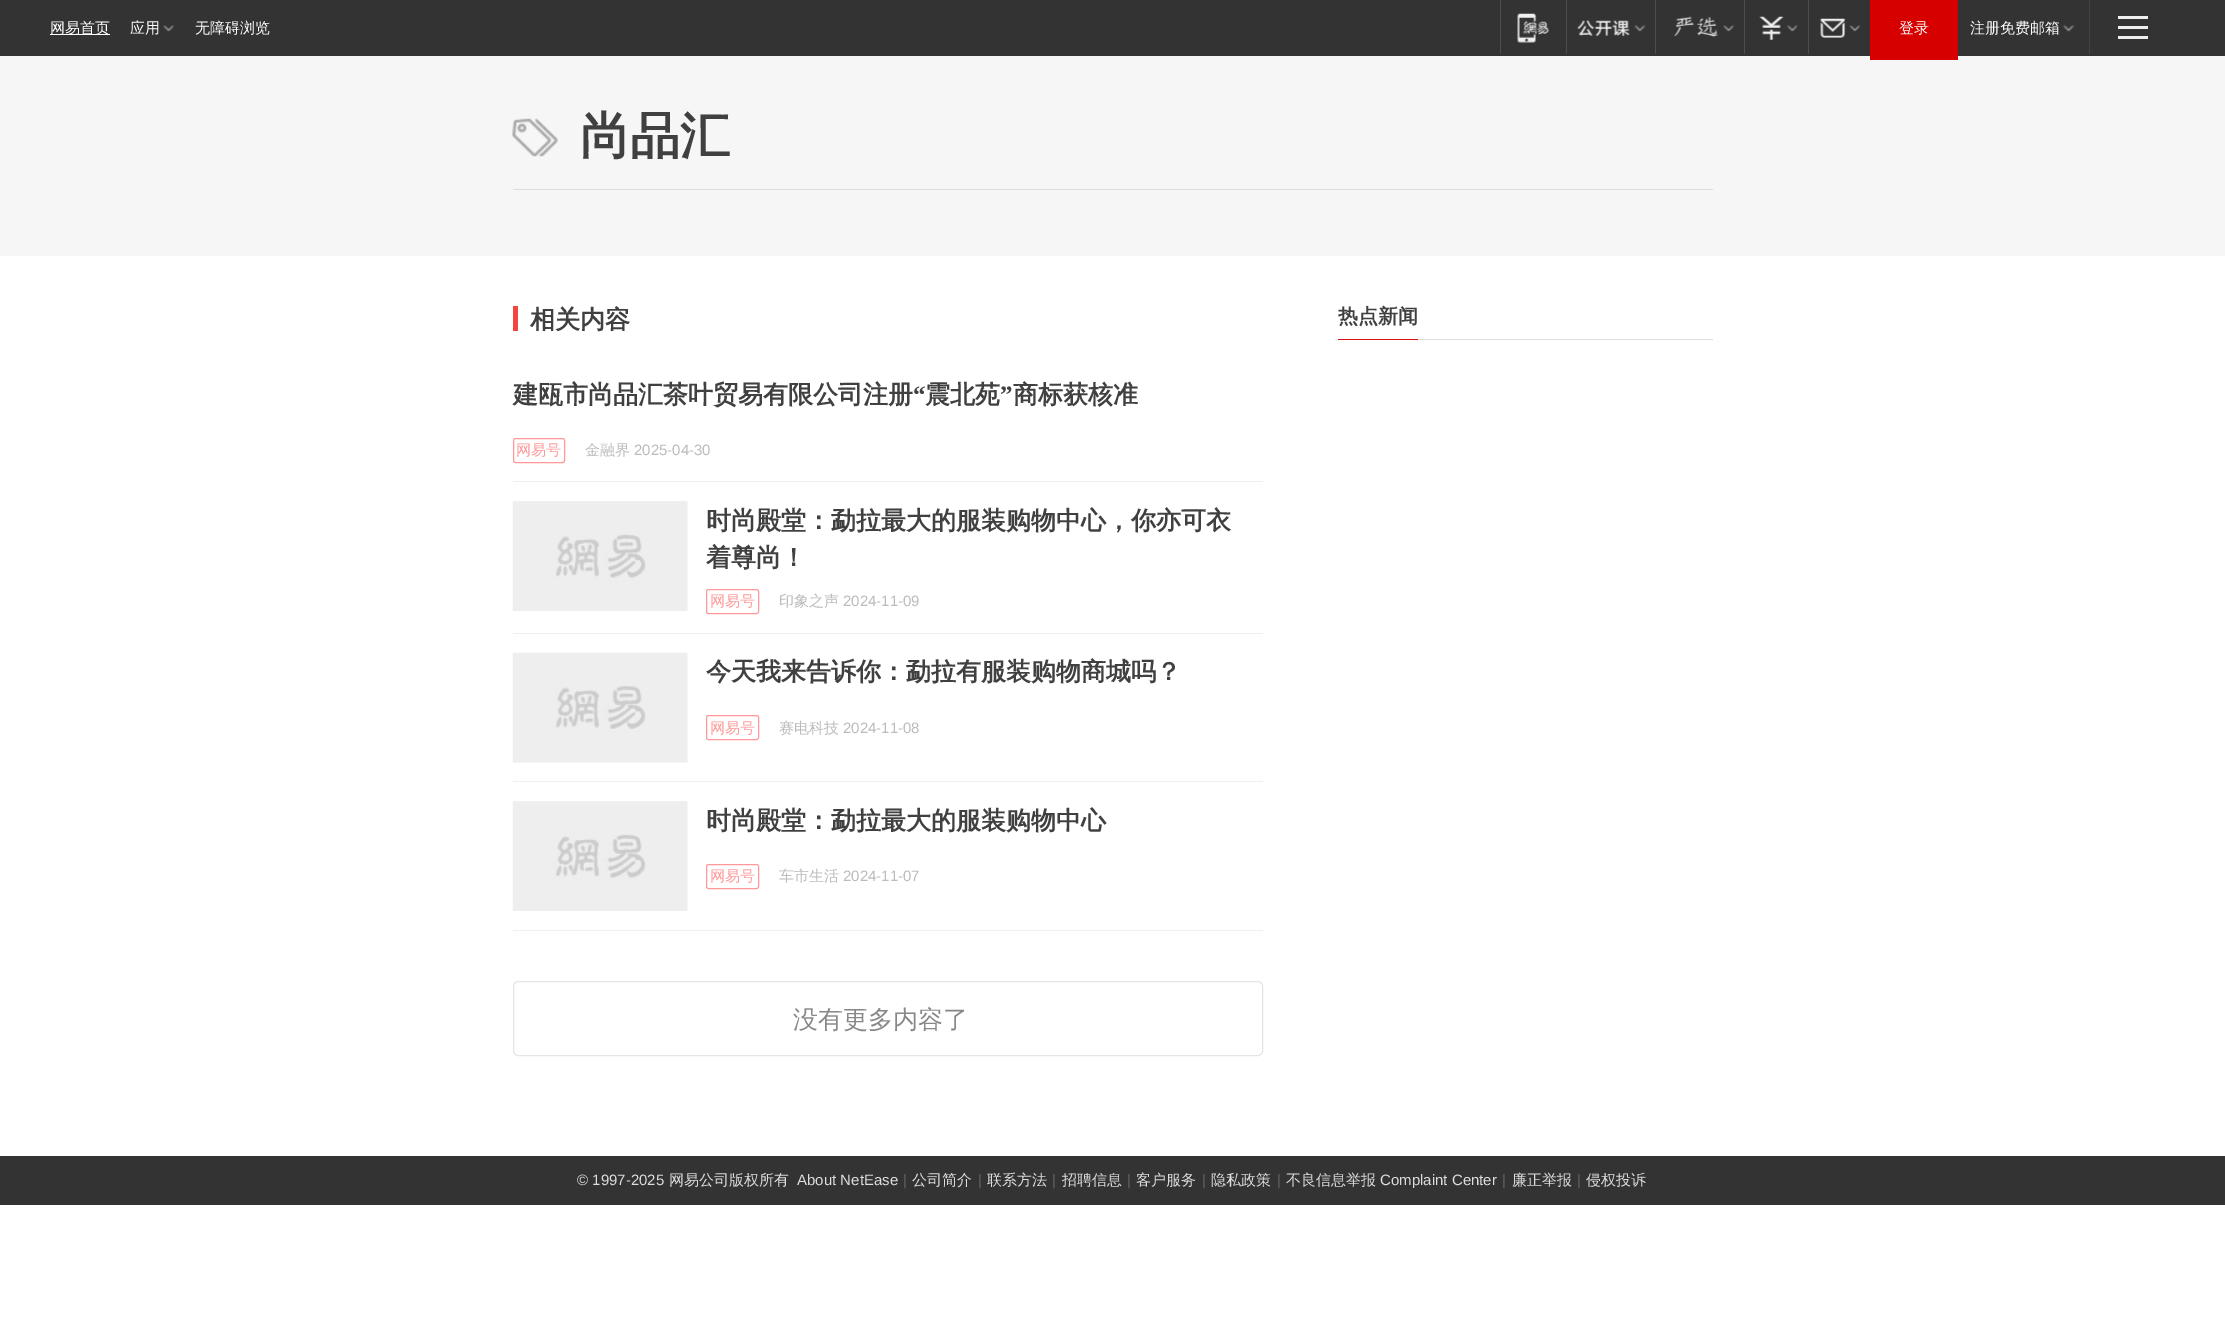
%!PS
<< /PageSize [2225 1317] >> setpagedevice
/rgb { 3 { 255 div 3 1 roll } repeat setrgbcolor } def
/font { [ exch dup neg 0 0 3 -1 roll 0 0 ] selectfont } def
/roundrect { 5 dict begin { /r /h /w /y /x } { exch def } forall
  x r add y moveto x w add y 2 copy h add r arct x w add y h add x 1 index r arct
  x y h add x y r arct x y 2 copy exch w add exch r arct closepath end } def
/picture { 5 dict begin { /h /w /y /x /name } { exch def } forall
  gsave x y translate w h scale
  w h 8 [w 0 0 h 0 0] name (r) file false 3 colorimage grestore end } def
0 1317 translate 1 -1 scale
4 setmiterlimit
255 255 255 rgb
0 0 2225 1317 rectfill
51 51 51 rgb
0 0 2225 56 rectfill
255 255 255 rgb
50 34 60 1 rectfill
(img/1.rgb) 163 25 12 7 picture
77 77 77 rgb
1500 0 1 54 rectfill
(img/2.rgb) 1517 13 32 30 picture
1566 0 1 54 rectfill
(img/3.rgb) 1577 20 53 16 picture
(img/4.rgb) 1634 25 12 7 picture
1655 0 1 54 rectfill
(img/5.rgb) 1674 16 44 21 picture
(img/6.rgb) 1723 25 12 7 picture
1744 0 1 54 rectfill
(img/7.rgb) 1759 16 25 24 picture
(img/8.rgb) 1787 25 11 7 picture
1808 0 1 54 rectfill
(img/9.rgb) 1820 18 26 20 picture
(img/4.rgb) 1849 25 12 7 picture
246 246 246 rgb
0 56 2225 200 rectfill
214 0 0 rgb
1870 0 88 60 rectfill
(img/6.rgb) 2063 25 12 7 picture
[
  [2089 0 1 54 68 68 68]
  [2118 16 30 3 239 239 239]
  [2118 26 30 3 239 239 239]
  [2118 36 30 3 239 239 239]
] { aload pop rgb rectfill } forall
(img/10.rgb) 512 118 46 39 picture
[
  [513 189 1200 1 221 221 221]
  [513 306 5 25 243 69 64]
  [513 481 750 1 240 240 240]
] { aload pop rgb rectfill } forall
255 153 153 rgb
513.5 438.5 51 24 2 roundrect stroke
240 240 240 rgb
513 633 750 1 rectfill
246 246 246 rgb
513 501 175 110 rectfill
(img/11.rgb) 512 501 175 110 picture
255 153 153 rgb
706.5 589.5 52 24 2 roundrect stroke
240 240 240 rgb
513 781 750 1 rectfill
246 246 246 rgb
513 653 175 110 rectfill
(img/12.rgb) 512 652 175 110 picture
255 153 153 rgb
706.5 715.5 52 24 2 roundrect stroke
240 240 240 rgb
513 930 750 1 rectfill
246 246 246 rgb
513 801 175 110 rectfill
(img/11.rgb) 512 801 175 110 picture
255 153 153 rgb
706.5 864.5 52 24 2 roundrect stroke
229 229 229 rgb
513.5 981.5 749 74 4.5 roundrect stroke
[
  [1418 339 295 1 221 221 221]
  [1338 339 80 1 219 16 17]
  [0 1156 2225 49 51 51 51]
] { aload pop rgb rectfill } forall
/WenQuanYiZenHei-Medium 15 font
255 255 255 rgb
[
  [(网易首页) 50 33]
  [(应用) 130 33]
  [(无障碍浏览) 195 33]
  [(登录) 1899 33]
  [(注册免费邮箱) 1970 33]
] { aload pop moveto show } forall
/WenQuanYiZenHei-Bold 50 font
64 64 64 rgb
580 153 moveto (尚品汇) show
/WenQuanYiZenHei-Bold 25 font
530 328 moveto (相关内容) show
513 403 moveto (建瓯市尚品汇茶叶贸易有限公司注册) show
/LiberationSerif-Bold 25 font
913 403 moveto (“) show
/WenQuanYiZenHei-Bold 25 font
925 403 moveto (震北苑) show
/LiberationSerif-Bold 25 font
1000 403 moveto (”) show
/WenQuanYiZenHei-Bold 25 font
1013 403 moveto (商标获核准) show
/WenQuanYiZenHei-Medium 15 font
255 153 153 rgb
516 455 moveto (网易号) show
187 187 187 rgb
585 455 moveto (金融界) show
/LiberationSans-Regular 15 font
634 455 moveto (2025-04-30) show
/WenQuanYiZenHei-Bold 25 font
64 64 64 rgb
706 529 moveto (时尚殿堂：勐拉最大的服装购物中心，你亦可衣) show
706 566 moveto (着尊尚！) show
/WenQuanYiZenHei-Medium 15 font
255 153 153 rgb
710 606 moveto (网易号) show
187 187 187 rgb
779 606 moveto (印象之声) show
/LiberationSans-Regular 15 font
843 606 moveto (2024-11-09) show
/WenQuanYiZenHei-Bold 25 font
64 64 64 rgb
706 680 moveto (今天我来告诉你：勐拉有服装购物商城吗？) show
/WenQuanYiZenHei-Medium 15 font
255 153 153 rgb
710 733 moveto (网易号) show
187 187 187 rgb
779 733 moveto (赛电科技) show
/LiberationSans-Regular 15 font
843 733 moveto (2024-11-08) show
/WenQuanYiZenHei-Bold 25 font
64 64 64 rgb
706 829 moveto (时尚殿堂：勐拉最大的服装购物中心) show
/WenQuanYiZenHei-Medium 15 font
255 153 153 rgb
710 881 moveto (网易号) show
187 187 187 rgb
779 881 moveto (车市生活) show
/LiberationSans-Regular 15 font
843 881 moveto (2024-11-07) show
/WenQuanYiZenHei-Medium 25 font
136 136 136 rgb
793 1028 moveto (没有更多内容了) show
/WenQuanYiZenHei-Bold 20 font
64 64 64 rgb
1338 323 moveto (热点新闻) show
/LiberationSans-Regular 15 font
221 221 221 rgb
577 1185 moveto (© 1997-2025) show
/WenQuanYiZenHei-Medium 15 font
669 1185 moveto (网易公司版权所有) show
/LiberationSans-Regular 15 font
797 1185 moveto (About NetEase) show
97 97 97 rgb
903 1185 moveto (|) show
/WenQuanYiZenHei-Medium 15 font
221 221 221 rgb
912 1185 moveto (公司简介) show
/LiberationSans-Regular 15 font
97 97 97 rgb
978 1185 moveto (|) show
/WenQuanYiZenHei-Medium 15 font
221 221 221 rgb
987 1185 moveto (联系方法) show
/LiberationSans-Regular 15 font
97 97 97 rgb
1052 1185 moveto (|) show
/WenQuanYiZenHei-Medium 15 font
221 221 221 rgb
1062 1185 moveto (招聘信息) show
/LiberationSans-Regular 15 font
97 97 97 rgb
1127 1185 moveto (|) show
/WenQuanYiZenHei-Medium 15 font
221 221 221 rgb
1136 1185 moveto (客户服务) show
/LiberationSans-Regular 15 font
97 97 97 rgb
1202 1185 moveto (|) show
/WenQuanYiZenHei-Medium 15 font
221 221 221 rgb
1211 1185 moveto (隐私政策) show
/LiberationSans-Regular 15 font
97 97 97 rgb
1277 1185 moveto (|) show
/WenQuanYiZenHei-Medium 15 font
221 221 221 rgb
1286 1185 moveto (不良信息举报) show
/LiberationSans-Regular 15 font
1380 1185 moveto (Complaint Center) show
97 97 97 rgb
1502 1185 moveto (|) show
/WenQuanYiZenHei-Medium 15 font
221 221 221 rgb
1512 1185 moveto (廉正举报) show
/LiberationSans-Regular 15 font
97 97 97 rgb
1577 1185 moveto (|) show
/WenQuanYiZenHei-Medium 15 font
221 221 221 rgb
1586 1185 moveto (侵权投诉) show
showpage
